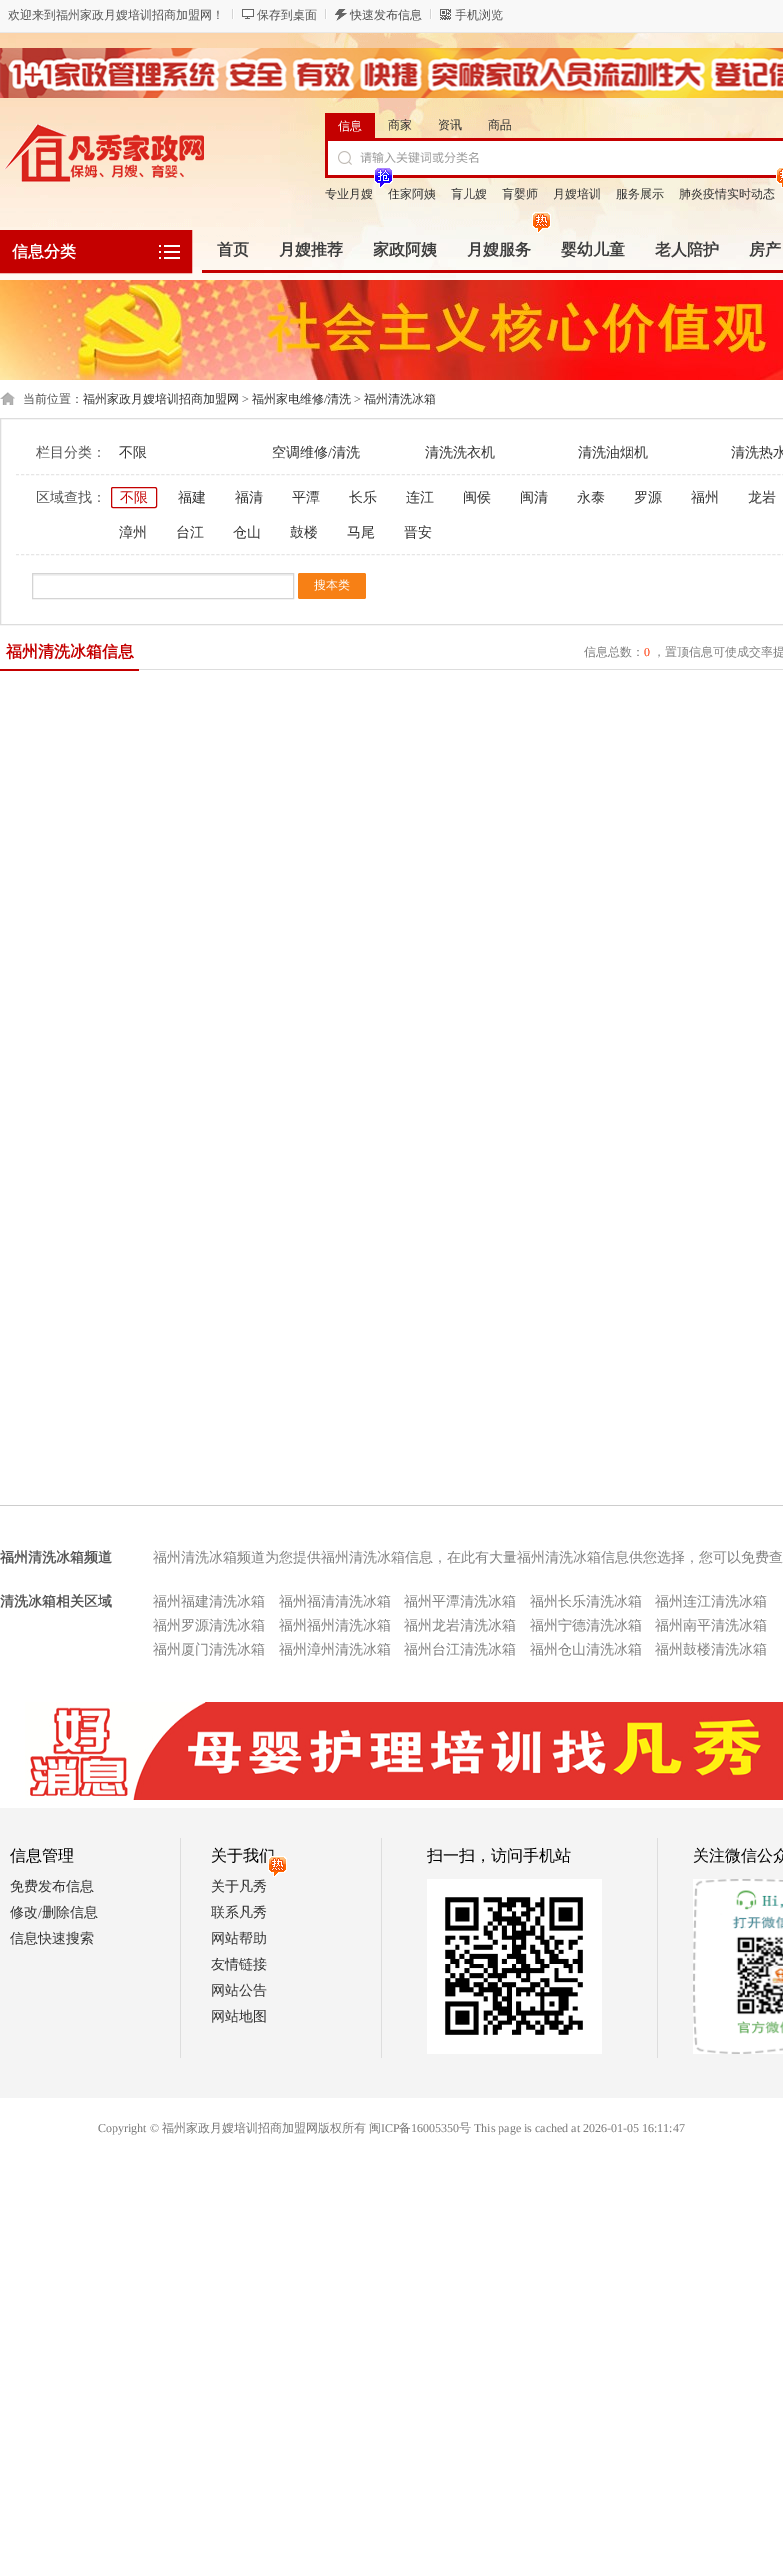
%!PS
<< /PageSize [783 2568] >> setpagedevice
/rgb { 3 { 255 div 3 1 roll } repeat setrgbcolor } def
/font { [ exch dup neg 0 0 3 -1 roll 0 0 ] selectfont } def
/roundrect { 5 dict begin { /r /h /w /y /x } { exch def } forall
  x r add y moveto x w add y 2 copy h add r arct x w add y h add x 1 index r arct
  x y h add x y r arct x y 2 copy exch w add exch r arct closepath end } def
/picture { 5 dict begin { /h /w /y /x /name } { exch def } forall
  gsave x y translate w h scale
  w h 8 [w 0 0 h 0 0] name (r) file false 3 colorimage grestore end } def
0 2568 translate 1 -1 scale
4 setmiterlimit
255 255 255 rgb
0 0 783 2568 rectfill
(img/1.rgb) 0 33 783 247 picture
[
  [0 0 783 32 248 248 248]
  [0 32 783 1 232 232 232]
  [233 9 1 10 255 255 255]
  [232 9 1 10 212 212 212]
] { aload pop rgb rectfill } forall
(img/2.rgb) 242 9 12 10 picture
255 255 255 rgb
326 9 1 10 rectfill
212 212 212 rgb
325 9 1 10 rectfill
(img/3.rgb) 335 9 12 12 picture
255 255 255 rgb
431 9 1 10 rectfill
212 212 212 rgb
430 9 1 10 rectfill
(img/4.rgb) 440 9 11 11 picture
(img/5.rgb) 0 48 783 50 picture
(img/6.rgb) 4 124 200 58 picture
196 0 0 rgb
325 113 50 25 rectfill
255 255 255 rgb
328 141 455 34 rectfill
(img/7.rgb) 338 151 14 14 picture
[
  [325 138 458 3 196 0 0]
  [325 175 458 3 196 0 0]
  [325 138 3 40 196 0 0]
] { aload pop rgb rectfill } forall
(img/9.rgb) 776 168 7 20 picture
2 setlinewidth
1 231 190 41 rectstroke
2 232 188 39 rectfill
(img/10.rgb) 159 245 21 14 picture
202 270 581 3 rectfill
(img/11.rgb) 532 212 19 21 picture
(img/12.rgb) 0 280 783 100 picture
(img/13.rgb) 0 392 15 13 picture
221 221 221 rgb
1 setlinewidth
0.5 418.5 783 206 rectstroke
230 230 230 rgb
[3 2.01] 0 setdash
16 474.5 moveto 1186 474.5 lineto stroke
16 554.5 moveto 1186 554.5 lineto stroke
196 0 0 rgb
[] 0 setdash
111.5 487.5 45 20 1.5 roundrect stroke
241 241 241 rgb
32 574 262 2 rectfill
212 212 212 rgb
32.5 573.5 261 25 rectstroke
247 128 21 rgb
298 573 68 26 2 roundrect fill
[
  [139 669 644 1 221 221 221]
  [0 669 139 2 196 0 0]
  [0 1505 783 1 205 205 205]
] { aload pop rgb rectfill } forall
(img/14.rgb) 25 1702 758 98 picture
[
  [0 1808 783 290 244 244 244]
  [180 1838 1 220 221 221 221]
  [381 1838 1 220 221 221 221]
  [657 1838 1 220 221 221 221]
] { aload pop rgb rectfill } forall
(img/16.rgb) 427 1879 175 175 picture
(img/17.rgb) 693 1879 90 175 picture
/WenQuanYiZenHei-Medium 12 font
85 85 85 rgb
[
  [(欢迎来到福州家政月嫂培训招商加盟网！) 8 19]
  [(保存到桌面) 257 19]
  [(快速发布信息) 350 19]
  [(手机浏览) 455 19]
] { aload pop moveto show } forall
255 255 255 rgb
338 130 moveto (信息) show
51 51 51 rgb
[
  [(商家) 388 129]
  [(资讯) 438 129]
  [(商品) 488 129]
] { aload pop moveto show } forall
/NotoSansCJKSC-Regular 12 font
157 157 157 rgb
360 162 moveto (请输入关键词或分类名) show
/WenQuanYiZenHei-Medium 12 font
51 51 51 rgb
325 198 moveto (专业月嫂) show
388 198 moveto (住家阿姨) show
(img/8.rgb) 374 168 19 20 picture
[
  [(肓儿嫂) 451 198]
  [(肓婴师) 502 198]
  [(月嫂培训) 553 198]
  [(服务展示) 616 198]
  [(肺炎疫情实时动态) 679 198]
] { aload pop moveto show } forall
/WenQuanYiZenHei-Bold 16 font
255 255 255 rgb
12 257 moveto (信息分类) show
61 61 61 rgb
[
  [(首页) 217 255]
  [(月嫂推荐) 279 255]
  [(家政阿姨) 373 255]
  [(月嫂服务) 467 255]
  [(婴幼儿童) 561 255]
  [(老人陪护) 655 255]
  [(房产) 749 255]
] { aload pop moveto show } forall
/WenQuanYiZenHei-Medium 12 font
85 85 85 rgb
23 403 moveto (当前位置：) show
51 51 51 rgb
83 403 moveto (福州家政月嫂培训招商加盟网) show
/LiberationSerif-Regular 12 font
85 85 85 rgb
242 403 moveto (>) show
/WenQuanYiZenHei-Medium 12 font
51 51 51 rgb
252 403 moveto (福州家电维修) show
/LiberationSerif-Regular 12 font
324 403 moveto (/) show
/WenQuanYiZenHei-Medium 12 font
327 403 moveto (清洗) show
/LiberationSerif-Regular 12 font
85 85 85 rgb
354 403 moveto (>) show
/WenQuanYiZenHei-Medium 12 font
51 51 51 rgb
364 403 moveto (福州清洗冰箱) show
/WenQuanYiZenHei-Medium 14 font
85 85 85 rgb
36 457 moveto (栏目分类：) show
51 51 51 rgb
119 457 moveto (不限) show
272 457 moveto (空调维修) show
/LiberationSerif-Regular 14 font
328 457 moveto (/) show
/WenQuanYiZenHei-Medium 14 font
[
  [(清洗) 332 457]
  [(清洗洗衣机) 425 457]
  [(清洗油烟机) 578 457]
  [(清洗热水) 731 457]
] { aload pop moveto show } forall
85 85 85 rgb
36 502 moveto (区域查找：) show
196 0 0 rgb
120 502 moveto (不限) show
51 51 51 rgb
[
  [(福建) 178 502]
  [(福清) 235 502]
  [(平潭) 292 502]
  [(长乐) 349 502]
  [(连江) 406 502]
  [(闽侯) 463 502]
  [(闽清) 520 502]
  [(永泰) 577 502]
  [(罗源) 634 502]
  [(福州) 691 502]
  [(龙岩) 748 502]
  [(漳州) 119 537]
  [(台江) 176 537]
  [(仓山) 233 537]
  [(鼓楼) 290 537]
  [(马尾) 347 537]
  [(晋安) 404 537]
] { aload pop moveto show } forall
/WenQuanYiZenHei-Medium 12 font
255 255 255 rgb
314 589 moveto (搜本类) show
/WenQuanYiZenHei-Bold 16 font
196 0 0 rgb
6 657 moveto (福州清洗冰箱信息) show
/WenQuanYiZenHei-Medium 12 font
128 128 128 rgb
584 656 moveto (信息总数：) show
/LiberationSerif-Regular 12 font
255 51 0 rgb
644 656 moveto (0) show
/WenQuanYiZenHei-Medium 12 font
128 128 128 rgb
653 656 moveto (，置顶信息可使成交率提) show
/WenQuanYiZenHei-Bold 14 font
85 85 85 rgb
0 1562 moveto (福州清洗冰箱频道) show
/WenQuanYiZenHei-Medium 14 font
128 128 128 rgb
153 1562 moveto (福州清洗冰箱频道为您提供福州清洗冰箱信息，在此有大量福州清洗冰箱信息供您选择，您可以免费查) show
/WenQuanYiZenHei-Bold 14 font
85 85 85 rgb
0 1606 moveto (清洗冰箱相关区域) show
/WenQuanYiZenHei-Medium 14 font
128 128 128 rgb
[
  [(福州福建清洗冰箱) 153 1606]
  [(福州福清清洗冰箱) 279 1606]
  [(福州平潭清洗冰箱) 404 1606]
  [(福州长乐清洗冰箱) 530 1606]
  [(福州连江清洗冰箱) 655 1606]
  [(福州罗源清洗冰箱) 153 1630]
  [(福州福州清洗冰箱) 279 1630]
  [(福州龙岩清洗冰箱) 404 1630]
  [(福州宁德清洗冰箱) 530 1630]
  [(福州南平清洗冰箱) 655 1630]
  [(福州厦门清洗冰箱) 153 1654]
  [(福州漳州清洗冰箱) 279 1654]
  [(福州台江清洗冰箱) 404 1654]
  [(福州仓山清洗冰箱) 530 1654]
  [(福州鼓楼清洗冰箱) 655 1654]
] { aload pop moveto show } forall
/WenQuanYiZenHei-Medium 16 font
0 0 0 rgb
10 1861 moveto (信息管理) show
/WenQuanYiZenHei-Medium 14 font
51 51 51 rgb
10 1891 moveto (免费发布信息) show
10 1917 moveto (修改) show
/LiberationSerif-Regular 14 font
38 1917 moveto (/) show
/WenQuanYiZenHei-Medium 14 font
42 1917 moveto (删除信息) show
10 1943 moveto (信息快速搜索) show
/WenQuanYiZenHei-Medium 16 font
0 0 0 rgb
211 1861 moveto (关于我们) show
(img/15.rgb) 268 1856 19 21 picture
/WenQuanYiZenHei-Medium 14 font
51 51 51 rgb
[
  [(关于凡秀) 211 1891]
  [(联系凡秀) 211 1917]
  [(网站帮助) 211 1943]
  [(友情链接) 211 1969]
  [(网站公告) 211 1995]
  [(网站地图) 211 2021]
] { aload pop moveto show } forall
/WenQuanYiZenHei-Medium 16 font
0 0 0 rgb
427 1861 moveto (扫一扫，访问手机站) show
693 1861 moveto (关注微信公众) show
/LiberationSerif-Regular 12 font
120 120 120 rgb
98 2132 moveto (Copyright ©) show
/WenQuanYiZenHei-Medium 12 font
162 2132 moveto (福州家政月嫂培训招商加盟网版权所有) show
369 2132 moveto (闽) show
/LiberationSerif-Regular 12 font
381 2132 moveto (ICP) show
/WenQuanYiZenHei-Medium 12 font
399 2132 moveto (备) show
/LiberationSerif-Regular 12 font
411 2132 moveto (16005350) show
/WenQuanYiZenHei-Medium 12 font
459 2132 moveto (号) show
/LiberationSerif-Regular 12 font
474 2132 moveto (This page is cached at 2026-01-05 16:11:47) show
showpage
